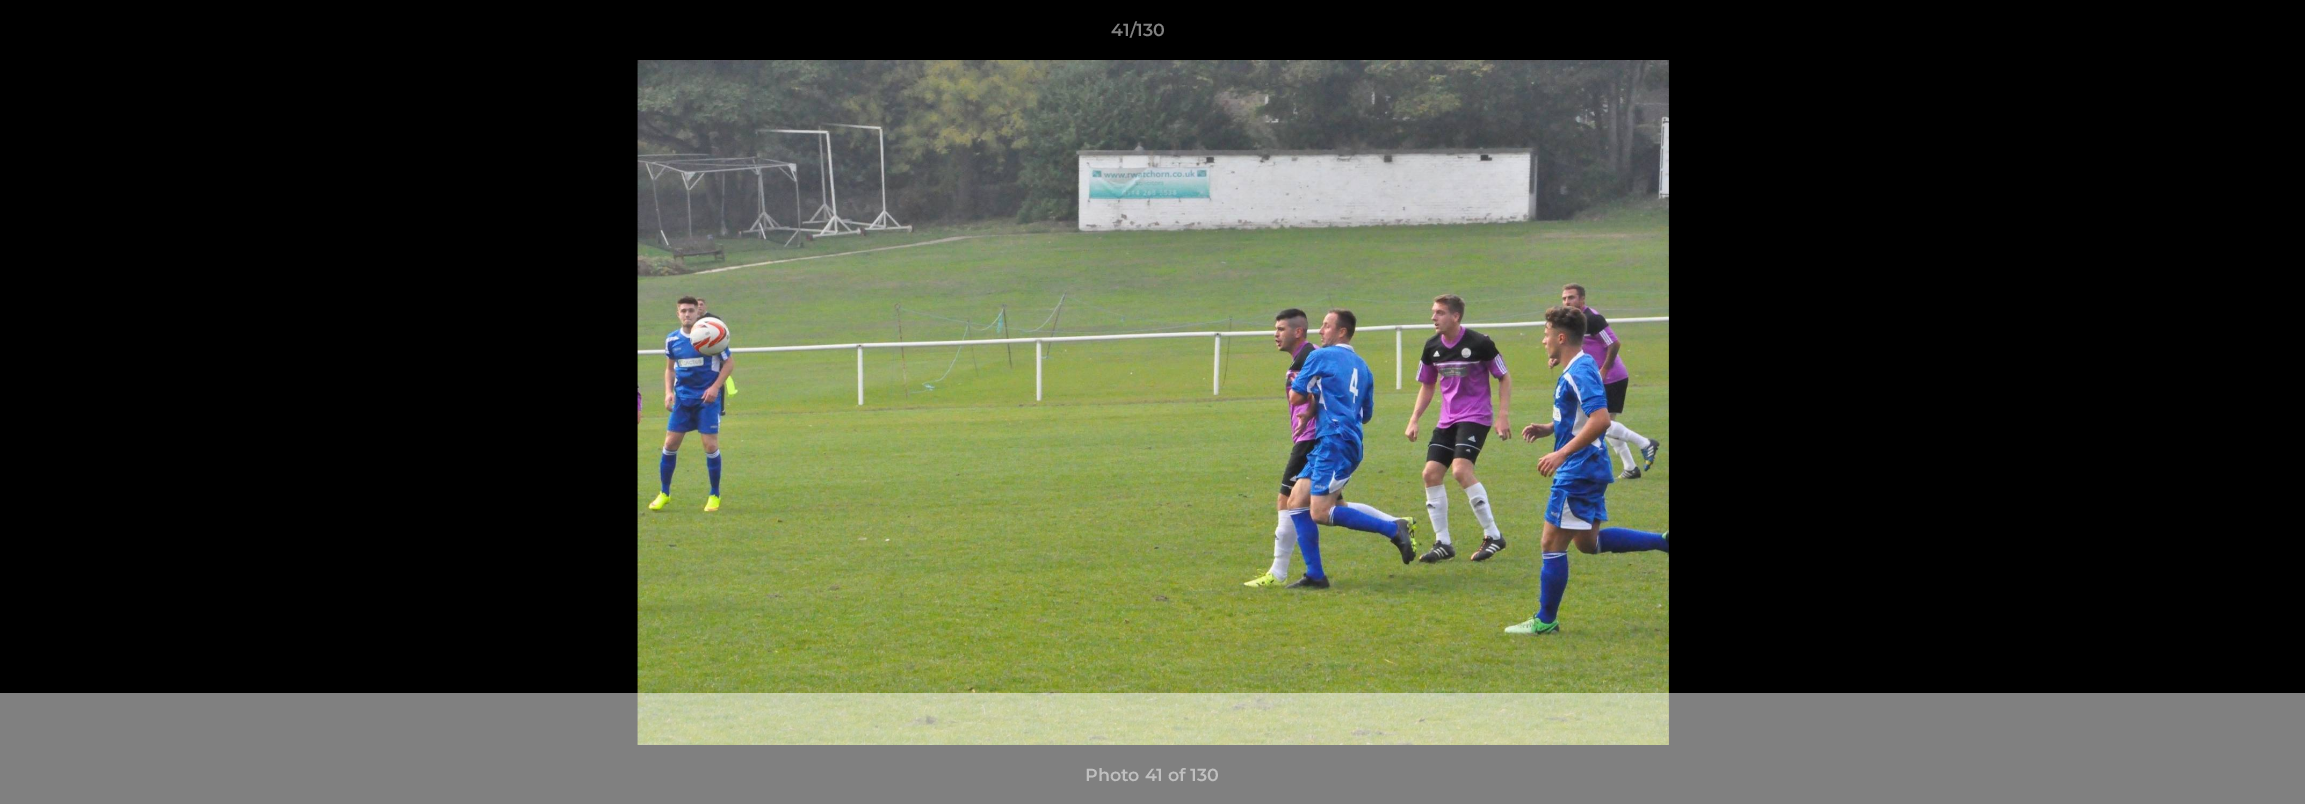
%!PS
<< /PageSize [2305 804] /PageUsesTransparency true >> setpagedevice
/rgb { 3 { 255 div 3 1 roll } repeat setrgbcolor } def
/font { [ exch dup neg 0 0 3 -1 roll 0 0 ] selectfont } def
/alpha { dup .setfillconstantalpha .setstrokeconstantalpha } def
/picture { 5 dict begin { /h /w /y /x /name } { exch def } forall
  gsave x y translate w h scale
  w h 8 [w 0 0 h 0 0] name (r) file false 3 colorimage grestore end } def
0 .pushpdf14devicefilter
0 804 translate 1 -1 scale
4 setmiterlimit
0 0 0 rgb
0 0 2305 804 rectfill
(img/1.rgb) 637 60 1032 685 picture
/Montserrat-SemiBold 17.5 font
128 128 128 rgb
1111 36 moveto (41/130) show
1085 781 moveto (Photo 41 of 130) show
0.5 alpha
255 255 255 rgb
0 693 2305 111 rectfill
.poppdf14devicefilter showpage
